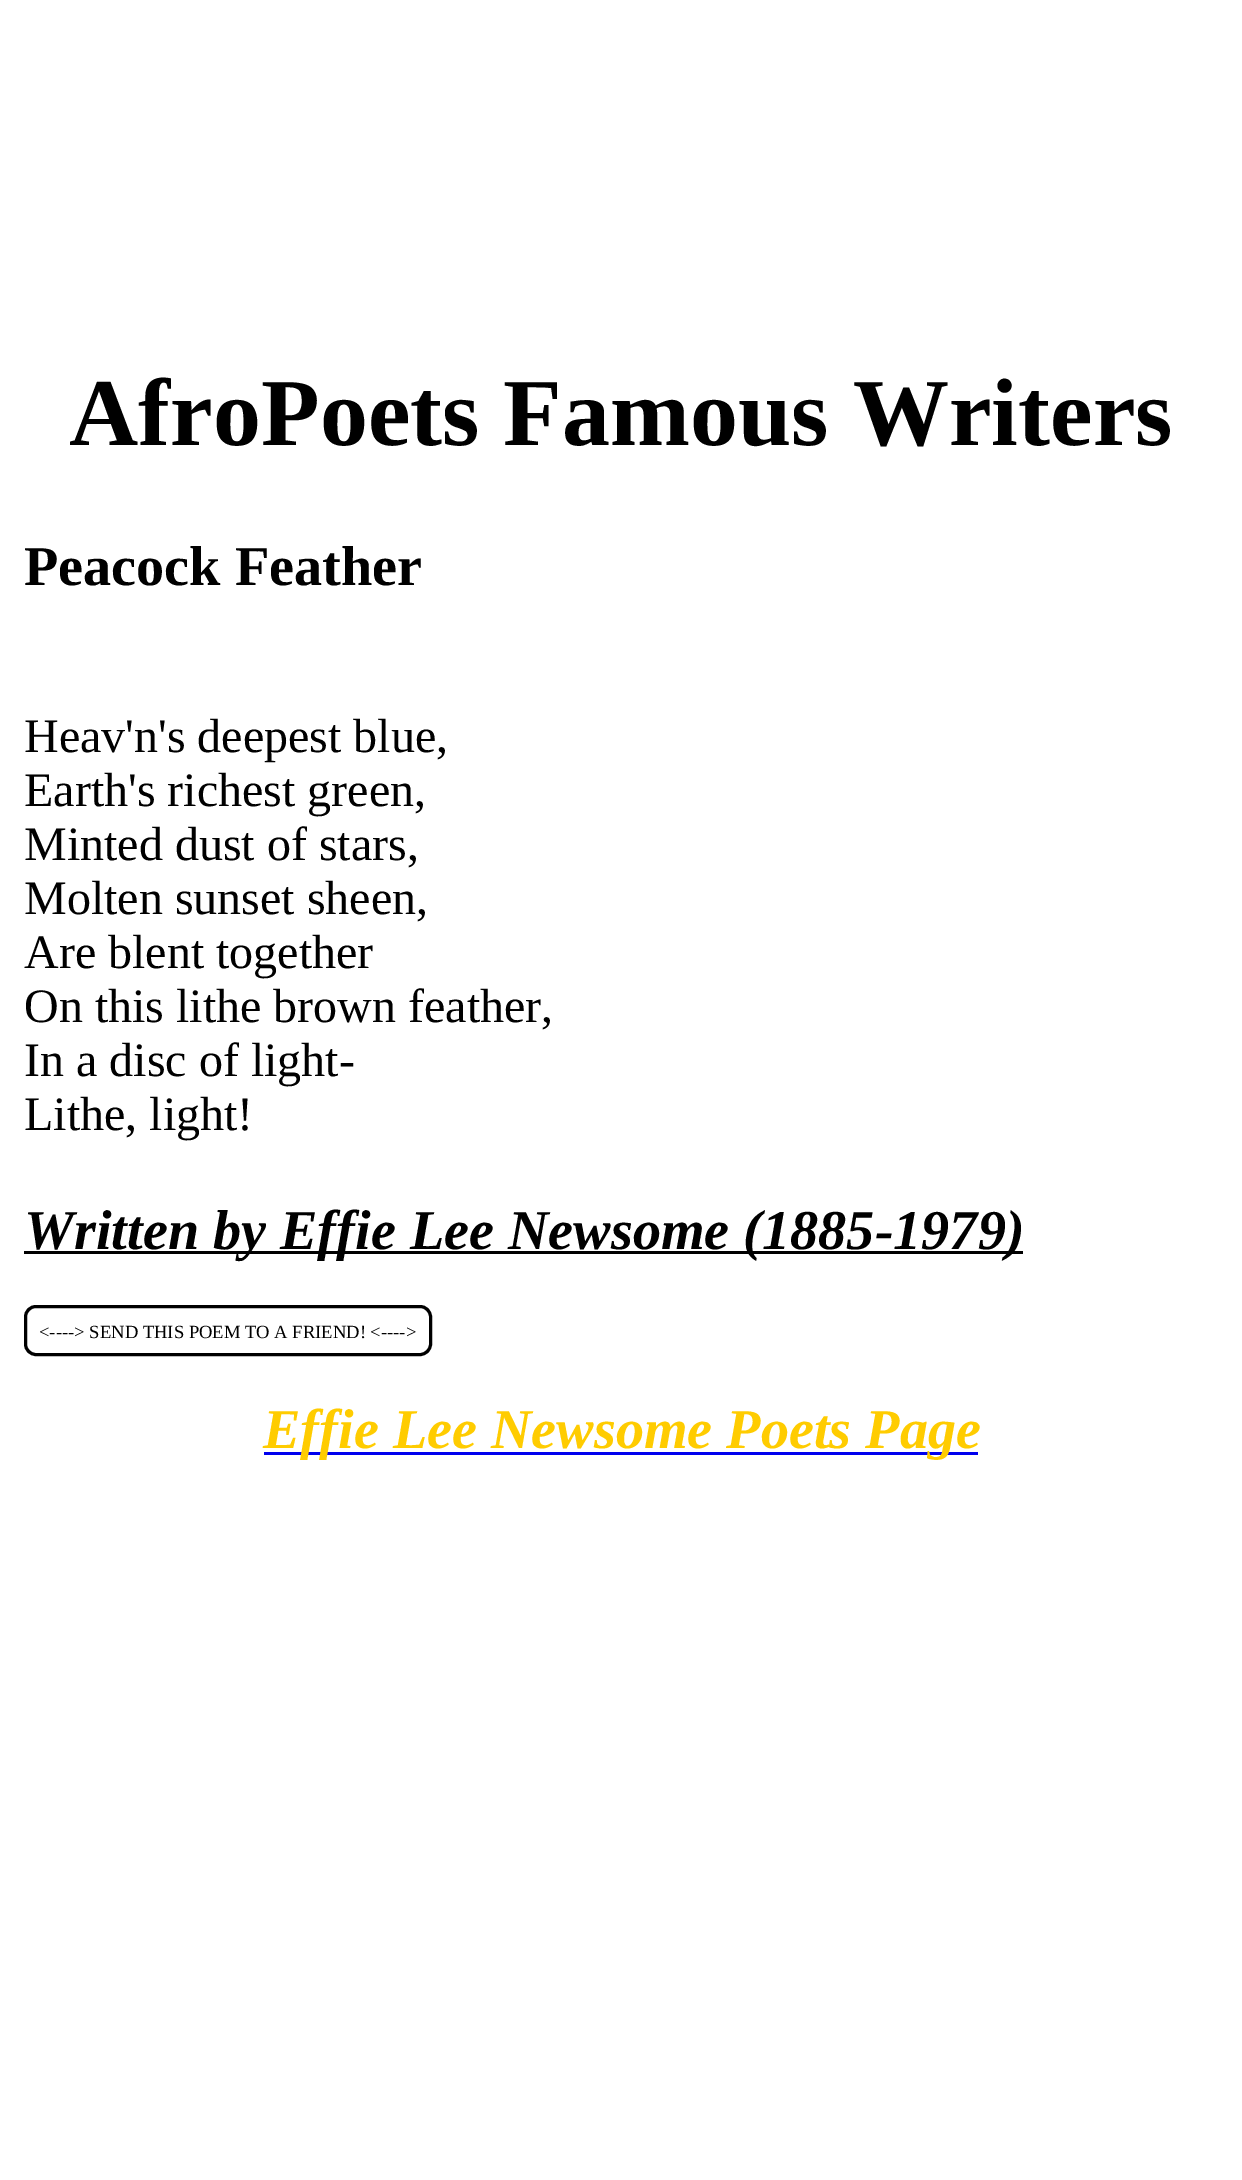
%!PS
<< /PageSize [1242 2180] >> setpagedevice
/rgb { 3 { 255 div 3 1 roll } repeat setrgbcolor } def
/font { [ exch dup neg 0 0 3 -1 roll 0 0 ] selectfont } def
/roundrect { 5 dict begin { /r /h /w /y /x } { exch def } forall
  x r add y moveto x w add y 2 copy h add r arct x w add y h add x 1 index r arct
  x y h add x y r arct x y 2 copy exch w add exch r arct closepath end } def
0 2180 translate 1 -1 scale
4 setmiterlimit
255 255 255 rgb
0 0 1242 2180 rectfill
0 0 0 rgb
24 1251 999 3 rectfill
3 setlinewidth
25.5 1306.5 405 48 10.5 roundrect stroke
0 0 238 rgb
264 1452 714 3 rectfill
/LiberationSerif-Bold 96 font
0 0 0 rgb
69 445 moveto (AfroPoets Famous Writers) show
/LiberationSerif-Bold 56.2 font
24 585 moveto (Peacock Feather) show
/LiberationSerif-Regular 48 font
[
  [(Heav'n's deepest blue,) 24 752]
  [(Earth's richest green,) 24 806]
  [(Minted dust of stars,) 24 860]
  [(Molten sunset sheen,) 24 914]
  [(Are blent together) 24 968]
  [(On this lithe brown feather,) 24 1022]
  [(In a disc of light-) 24 1076]
  [(Lithe, light!) 24 1130]
] { aload pop moveto show } forall
/LiberationSerif-BoldItalic 56.2 font
24 1249 moveto (Written by Effie Lee Newsome \(1885-1979\)) show
/LiberationSerif-Regular 18.6 font
39 1338 moveto (<----> SEND THIS POEM TO A FRIEND! <---->) show
/LiberationSerif-BoldItalic 56.2 font
255 204 0 rgb
263 1448 moveto (Effie Lee Newsome Poets Page) show
showpage
